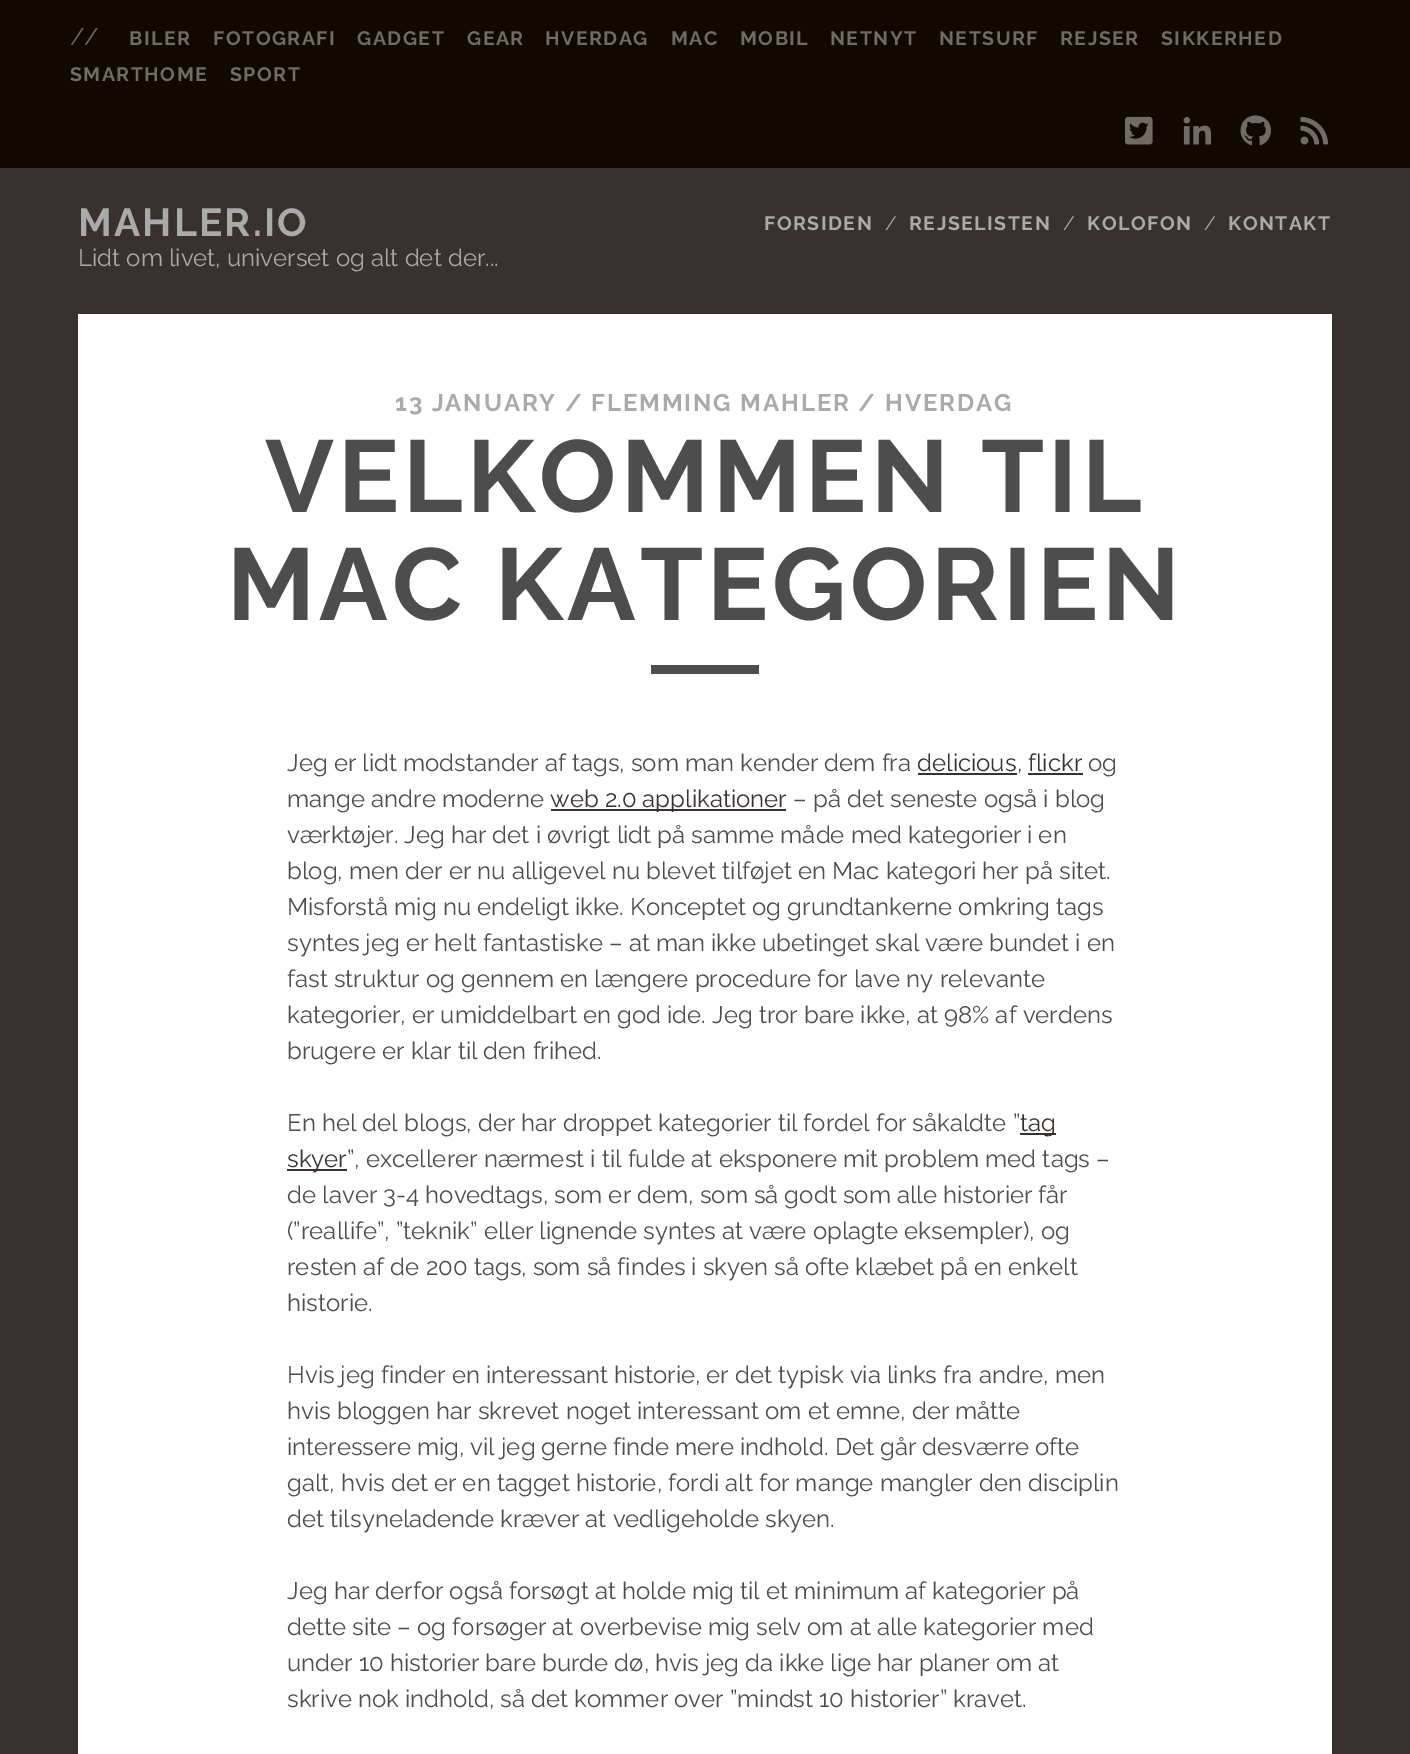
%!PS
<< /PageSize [1410 1754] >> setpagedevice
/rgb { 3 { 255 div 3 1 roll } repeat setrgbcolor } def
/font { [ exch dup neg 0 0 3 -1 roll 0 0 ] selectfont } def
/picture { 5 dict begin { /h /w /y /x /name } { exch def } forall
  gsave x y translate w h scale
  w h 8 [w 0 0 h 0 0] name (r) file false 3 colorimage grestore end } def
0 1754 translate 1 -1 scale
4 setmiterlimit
56 49 47 rgb
0 0 1410 1754 rectfill
17 8 0 rgb
0 0 1410 168 rectfill
(img/1.rgb) 1125 116 28 29 picture
(img/2.rgb) 1183 117 29 28 picture
(img/3.rgb) 1240 115 31 31 picture
(img/4.rgb) 1300 116 28 29 picture
[
  [78 314 1254 1440 255 255 255]
  [651 665 108 9 77 77 77]
  [918 773 99 2 56 49 47]
  [1028 773 55 2 56 49 47]
  [551 809 235 2 56 49 47]
  [1020 1133 36 2 56 49 47]
  [287 1169 60 2 56 49 47]
] { aload pop rgb rectfill } forall
/Raleway-Regular 24 font
112 107 102 rgb
70 45 moveto (//) show
/Raleway-Bold 19.5 font
129 45 moveto 1.5 0 (BILER) ashow
213 45 moveto 1.5 0 (FOTOGRAFI) ashow
357 45 moveto 1.5 0 (GADGET) ashow
467 45 moveto 1.5 0 (GEAR) ashow
545 45 moveto 1.5 0 (HVERDAG) ashow
671 45 moveto 1.5 0 (MAC) ashow
740 45 moveto 1.5 0 (MOBIL) ashow
830 45 moveto 1.5 0 (NETNYT) ashow
939 45 moveto 1.5 0 (NETSURF) ashow
1060 45 moveto 1.5 0 (REJSER) ashow
1161 45 moveto 1.5 0 (SIKKERHED) ashow
70 81 moveto 1.5 0 (SMARTHOME) ashow
230 81 moveto 1.5 0 (SPORT) ashow
/Raleway-Bold 39 font
170 170 170 rgb
78 236 moveto 2.25 0 (MAHLER.IO) ashow
/Raleway-Bold 19.5 font
764 230 moveto 1.5 0 (FORSIDEN) ashow
/Raleway-Regular 19.5 font
885 230 moveto (/) show
/Raleway-Bold 19.5 font
909 230 moveto 1.5 0 (REJSELISTEN) ashow
/Raleway-Regular 19.5 font
1063 230 moveto (/) show
/Raleway-Bold 19.5 font
1087 230 moveto 1.5 0 (KOLOFON) ashow
/Raleway-Regular 19.5 font
1204 230 moveto (/) show
/Raleway-Bold 19.5 font
1228 230 moveto 1.5 0 (KONTAKT) ashow
/Raleway-Regular 24 font
78 266 moveto (Lidt om livet, universet og alt det der...) show
/Raleway-Bold 24 font
395 411 moveto 1.9 0 (13 JANUARY / FLEMMING MAHLER / HVERDAG) ashow
/Raleway-Bold 102 font
77 77 77 rgb
265 512 moveto 4.1 0 (VELKOMMEN TIL) ashow
227 620 moveto 4.1 0 (MAC KATEGORIEN) ashow
/Raleway-Regular 24 font
287 771 moveto (Jeg er lidt modstander af tags, som man kender dem fra) show
56 49 47 rgb
917 771 moveto (delicious) show
77 77 77 rgb
1017 771 moveto (,) show
56 49 47 rgb
1028 771 moveto (flickr) show
77 77 77 rgb
1088 771 moveto (og) show
287 807 moveto (mange andre moderne) show
56 49 47 rgb
550 807 moveto (web 2.0 applikationer) show
77 77 77 rgb
[
  [(– på det seneste også i blog) 793 807]
  [(værktøjer. Jeg har det i øvrigt lidt på samme måde med kategorier i en) 287 843]
  [(blog, men der er nu alligevel nu blevet tilføjet en Mac kategori her på sitet.) 287 879]
  [(Misforstå mig nu endeligt ikke. Konceptet og grundtankerne omkring tags) 287 915]
  [(syntes jeg er helt fantastiske – at man ikke ubetinget skal være bundet i en) 287 951]
  [(fast struktur og gennem en længere procedure for lave ny relevante) 287 987]
  [(kategorier, er umiddelbart en god ide. Jeg tror bare ikke, at 98% af verdens) 287 1023]
  [(brugere er klar til den frihed.) 287 1059]
  [(En hel del blogs, der har droppet kategorier til fordel for såkaldte ”) 287 1131]
] { aload pop moveto show } forall
56 49 47 rgb
1020 1131 moveto (tag) show
287 1167 moveto (skyer) show
77 77 77 rgb
[
  [(”, excellerer nærmest i til fulde at eksponere mit problem med tags –) 347 1167]
  [(de laver 3-4 hovedtags, som er dem, som så godt som alle historier får) 287 1203]
  [(\(”reallife”, ”teknik” eller lignende syntes at være oplagte eksempler\), og) 287 1239]
  [(resten af de 200 tags, som så findes i skyen så ofte klæbet på en enkelt) 287 1275]
  [(historie.) 287 1311]
  [(Hvis jeg finder en interessant historie, er det typisk via links fra andre, men) 287 1383]
  [(hvis bloggen har skrevet noget interessant om et emne, der måtte) 287 1419]
  [(interessere mig, vil jeg gerne finde mere indhold. Det går desværre ofte) 287 1455]
  [(galt, hvis det er en tagget historie, fordi alt for mange mangler den disciplin) 287 1491]
  [(det tilsyneladende kræver at vedligeholde skyen.) 287 1527]
  [(Jeg har derfor også forsøgt at holde mig til et minimum af kategorier på) 287 1599]
  [(dette site – og forsøger at overbevise mig selv om at alle kategorier med) 287 1635]
  [(under 10 historier bare burde dø, hvis jeg da ikke lige har planer om at) 287 1671]
  [(skrive nok indhold, så det kommer over ”mindst 10 historier” kravet.) 287 1707]
] { aload pop moveto show } forall
showpage
